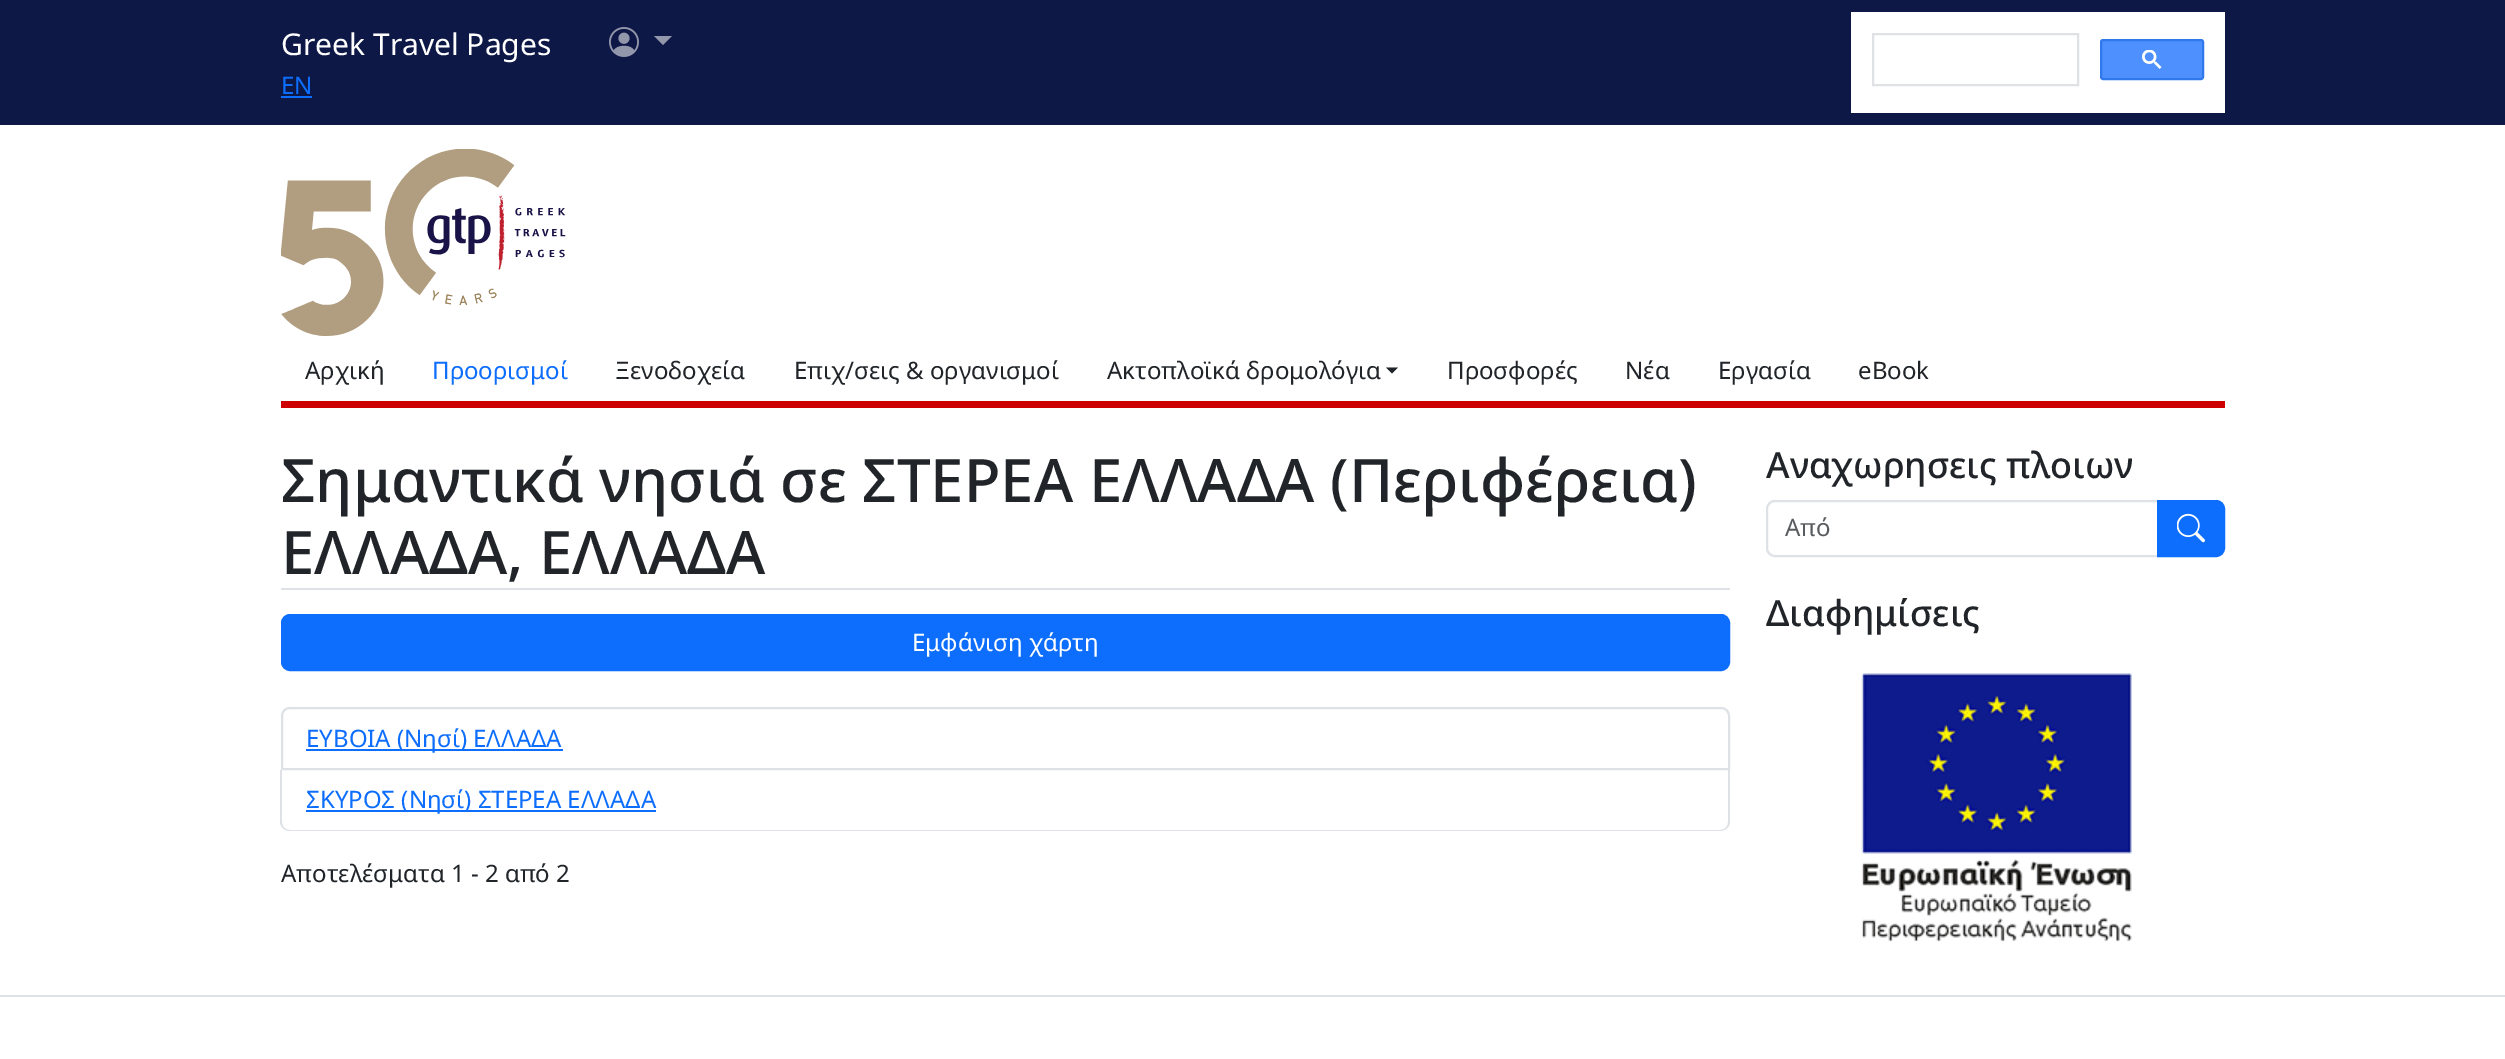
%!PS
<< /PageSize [2505 1059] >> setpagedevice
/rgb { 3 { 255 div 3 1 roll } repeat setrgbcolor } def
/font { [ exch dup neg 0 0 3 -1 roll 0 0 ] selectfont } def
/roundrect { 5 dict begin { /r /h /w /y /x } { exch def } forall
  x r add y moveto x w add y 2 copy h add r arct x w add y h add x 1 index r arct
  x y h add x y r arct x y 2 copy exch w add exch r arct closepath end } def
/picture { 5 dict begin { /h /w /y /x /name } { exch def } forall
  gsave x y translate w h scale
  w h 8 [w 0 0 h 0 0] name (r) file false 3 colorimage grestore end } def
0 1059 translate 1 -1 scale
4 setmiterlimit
255 255 255 rgb
0 0 2505 1059 rectfill
13 24 70 rgb
0 0 2505 125 rectfill
13 110 253 rgb
281 96 31 2 rectfill
(img/1.rgb) 609 27 30 30 picture
146 151 172 rgb
654 36 moveto 672 36 lineto 663 45 lineto closepath fill
255 255 255 rgb
1851 12 374 101 rectfill
223 225 229 rgb
2 setlinewidth
1873 34 205 51 rectstroke
77 144 254 rgb
2101 40 102 39 2 roundrect gsave fill grestore
48 121 237 rgb
stroke
(img/2.rgb) 2142 50 20 19 picture
(img/3.rgb) 281 149 285 187 picture
204 0 0 rgb
281 401 1944 7 rectfill
33 37 41 rgb
1386 367.5 moveto 1398 367.5 lineto 1392 373.5 lineto closepath fill
222 226 230 rgb
281 588 1449 2 rectfill
13 110 253 rgb
282 615 1447 55 8 roundrect gsave fill grestore
stroke
222 226 230 rgb
290 708 moveto 1721 708 lineto 1725.5 708 1729 711.5 1729 716 curveto 1729 769 lineto 282 769 lineto 282 716 lineto 282 711.5 285.5 708 290 708 curveto closepath stroke
13 110 253 rgb
306 749 257 2 rectfill
222 226 230 rgb
280 770 moveto 1730 770 lineto 1730 822 lineto 1730 827 1725 831 1720 831 curveto 290 831 lineto 285 831 280 827 280 822 curveto closepath 282 770 moveto 1728 770 lineto 1728 822 lineto 1728 826 1725 830 1720 830 curveto 290 830 lineto 285 830 282 826 282 822 curveto closepath eofill
13 110 253 rgb
306 810 350 2 rectfill
222 226 230 rgb
1775 501 moveto 2158 501 lineto 2158 556 lineto 1775 556 lineto 1770.5 556 1767 552.5 1767 548 curveto 1767 509 lineto 1767 504.5 1770.5 501 1775 501 curveto closepath stroke
13 110 253 rgb
2158 501 moveto 2216 501 lineto 2220.5 501 2224 504.5 2224 509 curveto 2224 548 lineto 2224 552.5 2220.5 556 2216 556 curveto 2158 556 lineto closepath gsave fill grestore
stroke
(img/4.rgb) 2177 513 28 30 picture
(img/5.rgb) 1861 673 271 269 picture
222 226 230 rgb
0 995 2505 2 rectfill
/NotoSans-Regular 30 font
255 255 255 rgb
281 55 moveto (Greek Travel Pages) show
/NotoSans-Regular 24 font
13 110 253 rgb
281 94 moveto (EN) show
33 37 41 rgb
305 379 moveto (Αρχική) show
13 110 253 rgb
432 379 moveto (Προορισμοί) show
33 37 41 rgb
[
  [(Ξενοδοχεία) 615 379]
  [(Επιχ/σεις & οργανισμοί) 794 379]
  [(Ακτοπλοϊκά δρομολόγια) 1107 379]
  [(Προσφορές) 1447 379]
  [(Nέα) 1625 379]
  [(Εργασία) 1718 379]
  [(eBook) 1858 379]
] { aload pop moveto show } forall
/NotoSans-Medium 60 font
281 502 moveto (Σημαντικά νησιά σε ΣΤΕΡΕΑ ΕΛΛΑΔΑ \(Περιφέρεια\)) show
281 574 moveto (ΕΛΛΑΔΑ, ΕΛΛΑΔΑ) show
/NotoSans-Regular 24 font
255 255 255 rgb
912 651 moveto (Εμφάνιση χάρτη) show
13 110 253 rgb
306 747 moveto (ΕΥΒΟΙΑ \(Νησί\) ΕΛΛΑΔΑ) show
306 808 moveto (ΣΚΥΡΟΣ \(Νησί\) ΣΤΕΡΕΑ ΕΛΛΑΔΑ) show
33 37 41 rgb
281 882 moveto (Αποτελέσματα 1 - 2 από 2) show
/NotoSans-Medium 36 font
1766 478 moveto (Αναχωρησεις πλοιων) show
/NotoSans-Regular 24 font
89 92 95 rgb
1785 536 moveto (Από) show
/NotoSans-Medium 36 font
33 37 41 rgb
1766 626 moveto (Διαφημίσεις) show
showpage
